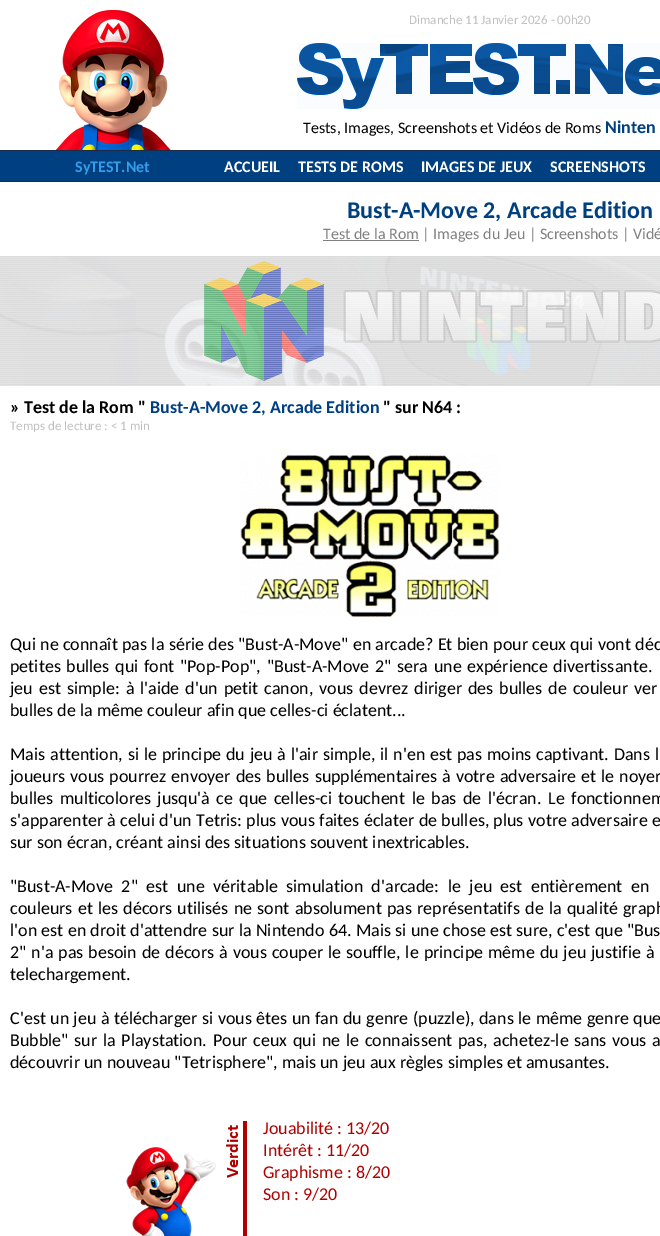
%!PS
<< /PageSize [660 1236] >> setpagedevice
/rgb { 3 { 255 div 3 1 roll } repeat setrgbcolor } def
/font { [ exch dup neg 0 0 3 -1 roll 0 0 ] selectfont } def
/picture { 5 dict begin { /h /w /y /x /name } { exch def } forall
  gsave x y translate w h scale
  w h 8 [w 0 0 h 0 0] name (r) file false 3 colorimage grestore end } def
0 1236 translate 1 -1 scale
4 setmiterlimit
255 255 255 rgb
0 0 660 1236 rectfill
(img/1.rgb) 56 10 115 140 picture
(img/2.rgb) 297 43 363 66 picture
[
  [0 150 660 1 28 44 71]
  [0 151 660 30 0 64 128]
  [0 181 660 1 28 44 71]
  [323 240 96 1 128 128 128]
] { aload pop rgb rectfill } forall
(img/3.rgb) 0 256 660 130 picture
(img/4.rgb) 0 257 660 129 picture
(img/5.rgb) 240 455 260 162 picture
(img/6.rgb) 126 1121 121 115 picture
/Carlito-Regular 13 font
192 192 192 rgb
409 24 moveto (Dimanche 11 Janvier 2026 - 00h20) show
/Carlito-Regular 16 font
0 0 0 rgb
303 133 moveto (Tests, Images, Screenshots et Vidéos de Roms) show
/Carlito-Bold 18 font
0 64 128 rgb
605 133 moveto (Ninten) show
/Carlito-Bold 16 font
53 157 234 rgb
75 172 moveto (SyTEST.Net) show
255 255 255 rgb
[
  [(ACCUEIL) 224 172]
  [(TESTS DE ROMS) 298 172]
  [(IMAGES DE JEUX) 421 172]
  [(SCREENSHOTS) 550 172]
] { aload pop moveto show } forall
/Carlito-Bold 24 font
0 64 128 rgb
347 218 moveto (Bust-A-Move 2, Arcade Edition) show
/Carlito-Regular 16 font
128 128 128 rgb
323 239 moveto (Test de la Rom | Images du Jeu | Screenshots | Vidé) show
/Carlito-Bold 18 font
0 0 0 rgb
10 413 moveto (» Test de la Rom ") show
0 64 128 rgb
150 413 moveto (Bust-A-Move 2, Arcade Edition) show
0 0 0 rgb
383 413 moveto (" sur N64 :) show
/Carlito-Regular 13 font
192 192 192 rgb
10 430 moveto (Temps de lecture : < 1 min) show
/Carlito-Regular 18 font
0 0 0 rgb
10 650 moveto 0.3 0 32 (Qui ne connaît pas la série des "Bust-A-Move" en arcade? Et bien pour ceux qui vont déc) widthshow
10 672 moveto 1.6 0 32 (petites bulles qui font "Pop-Pop", "Bust-A-Move 2" sera une expérience divertissante.) widthshow
10 694 moveto 1.9 0 32 (jeu est simple: à l'aide d'un petit canon, vous devrez diriger des bulles de couleur ver) widthshow
10 716 moveto (bulles de la même couleur afin que celles-ci éclatent...) show
10 760 moveto 0.8 0 32 (Mais attention, si le principe du jeu à l'air simple, il n'en est pas moins captivant. Dans l) widthshow
10 782 moveto 1 0 32 (joueurs vous pourrez envoyer des bulles supplémentaires à votre adversaire et le noyer) widthshow
10 804 moveto 2.5 0 32 (bulles multicolores jusqu'à ce que celles-ci touchent le bas de l'écran. Le fonctionnem) widthshow
10 826 moveto 0.3 0 32 (s'apparenter à celui d'un Tetris: plus vous faites éclater de bulles, plus votre adversaire e) widthshow
10 848 moveto (sur son écran, créant ainsi des situations souvent inextricables.) show
10 892 moveto 4.4 0 32 ("Bust-A-Move 2" est une véritable simulation d'arcade: le jeu est entièrement en) widthshow
10 914 moveto 1.2 0 32 (couleurs et les décors utilisés ne sont absolument pas représentatifs de la qualité graph) widthshow
10 936 moveto 0.25 0 32 (l'on est en droit d'attendre sur la Nintendo 64. Mais si une chose est sure, c'est que "Bus) widthshow
10 958 moveto 0.9 0 32 (2" n'a pas besoin de décors à vous couper le souffle, le principe même du jeu justifie à) widthshow
10 980 moveto (telechargement.) show
10 1024 moveto 0.4 0 32 (C'est un jeu à télécharger si vous êtes un fan du genre \(puzzle\), dans le même genre que) widthshow
10 1046 moveto 1.75 0 32 (Bubble" sur la Playstation. Pour ceux qui ne le connaissent pas, achetez-le sans vous a) widthshow
10 1068 moveto (découvrir un nouveau "Tetrisphere", mais un jeu aux règles simples et amusantes.) show
176 0 0 rgb
[
  [(Jouabilité : 13/20) 263 1134]
  [(Intérêt : 11/20) 263 1156]
  [(Graphisme : 8/20) 263 1178]
  [(Son : 9/20) 263 1200]
] { aload pop moveto show } forall
showpage
